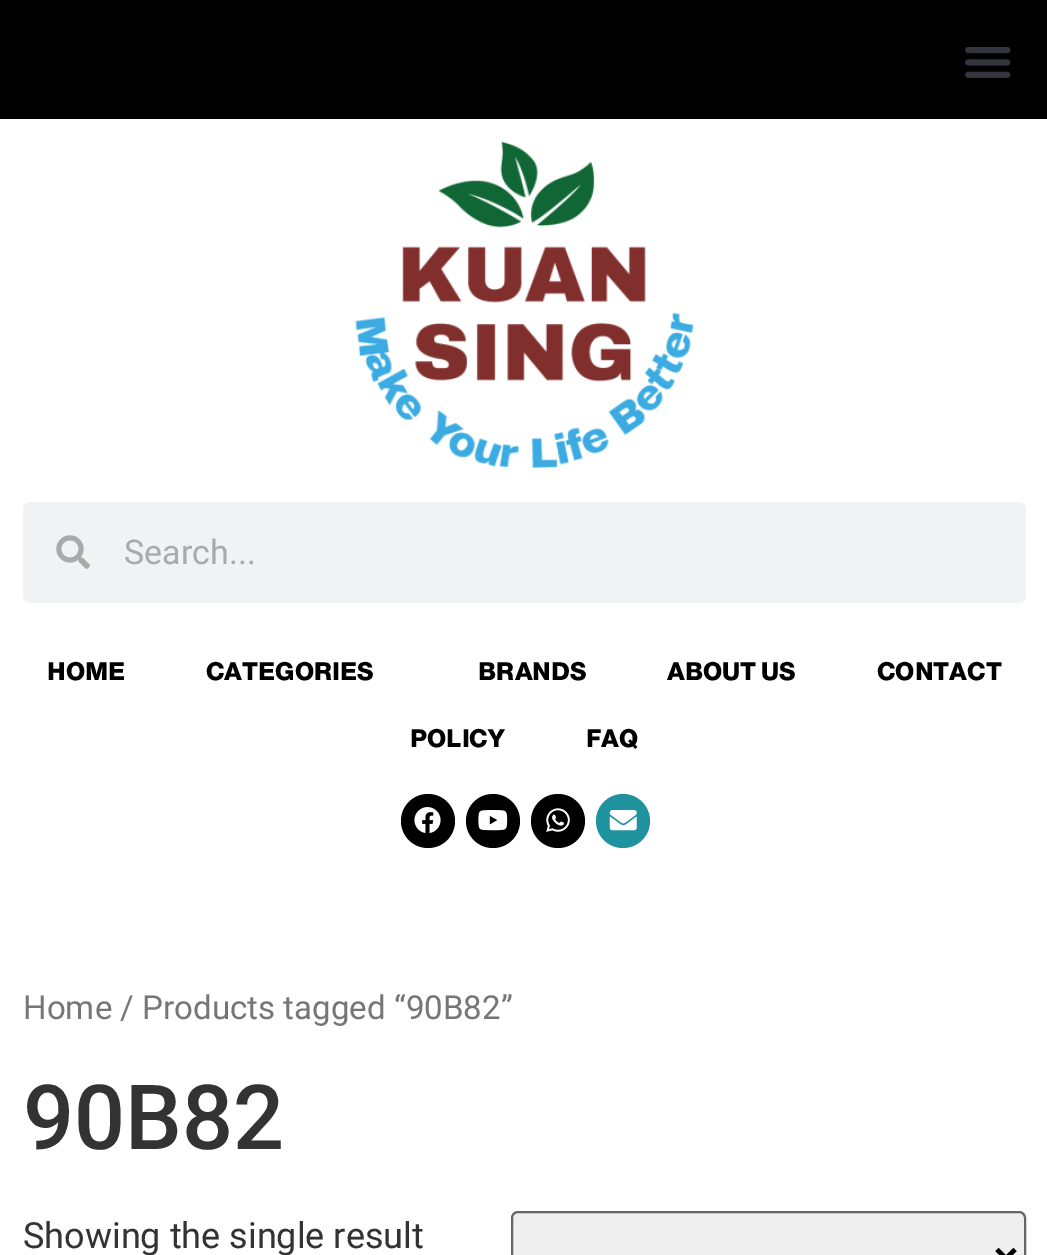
%!PS
<< /PageSize [1047 1255] >> setpagedevice
/rgb { 3 { 255 div 3 1 roll } repeat setrgbcolor } def
/font { [ exch dup neg 0 0 3 -1 roll 0 0 ] selectfont } def
/circle { newpath 0 360 arc closepath } def
/roundrect { 5 dict begin { /r /h /w /y /x } { exch def } forall
  x r add y moveto x w add y 2 copy h add r arct x w add y h add x 1 index r arct
  x y h add x y r arct x y 2 copy exch w add exch r arct closepath end } def
/picture { 5 dict begin { /h /w /y /x /name } { exch def } forall
  gsave x y translate w h scale
  w h 8 [w 0 0 h 0 0] name (r) file false 3 colorimage grestore end } def
0 1255 translate 1 -1 scale
4 setmiterlimit
255 255 255 rgb
0 0 1047 1255 rectfill
0 0 0 rgb
0 0 1047 119 rectfill
(img/1.rgb) 965 47 46 31 picture
(img/2.rgb) 355 141 338 327 picture
241 242 243 rgb
23 502 1003 101 7 roundrect fill
(img/3.rgb) 56 535 34 34 picture
0 0 0 rgb
428 821 27 circle fill
(img/4.rgb) 414 807 27 26 picture
493 821 27 circle fill
(img/5.rgb) 478 810 30 21 picture
558 821 27 circle fill
(img/6.rgb) 546 808 24 24 picture
30 147 158 rgb
623 821 27 circle fill
(img/7.rgb) 609 810 28 21 picture
239 239 239 rgb
512 1212 513 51 6 roundrect gsave fill grestore
102 102 102 rgb
2 setlinewidth
stroke
0 0 0 rgb
4.5 setlinewidth
997 1249.5 moveto 1006 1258.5 lineto 1015 1249.5 lineto stroke
/Roboto-Regular 34 font
170 170 170 rgb
124 564 moveto (Search...) show
/Almarai-ExtraBold 24.75 font
0 0 0 rgb
[
  [(HOME) 47 680]
  [(CATEGORIES) 206 680]
  [(BRANDS) 478 680]
  [(ABOUT US) 667 680]
  [(CONTACT) 877 680]
  [(POLICY) 410 747]
  [(FAQ) 586 747]
] { aload pop moveto show } forall
/Roboto-Regular 33.1 font
118 118 118 rgb
23 1019 moveto (Home / Products tagged “90B82”) show
/Roboto-Medium 90 font
51 51 51 rgb
23 1149 moveto (90B82) show
/Roboto-Regular 36 font
23 1248 moveto (Showing the single result) show
showpage
